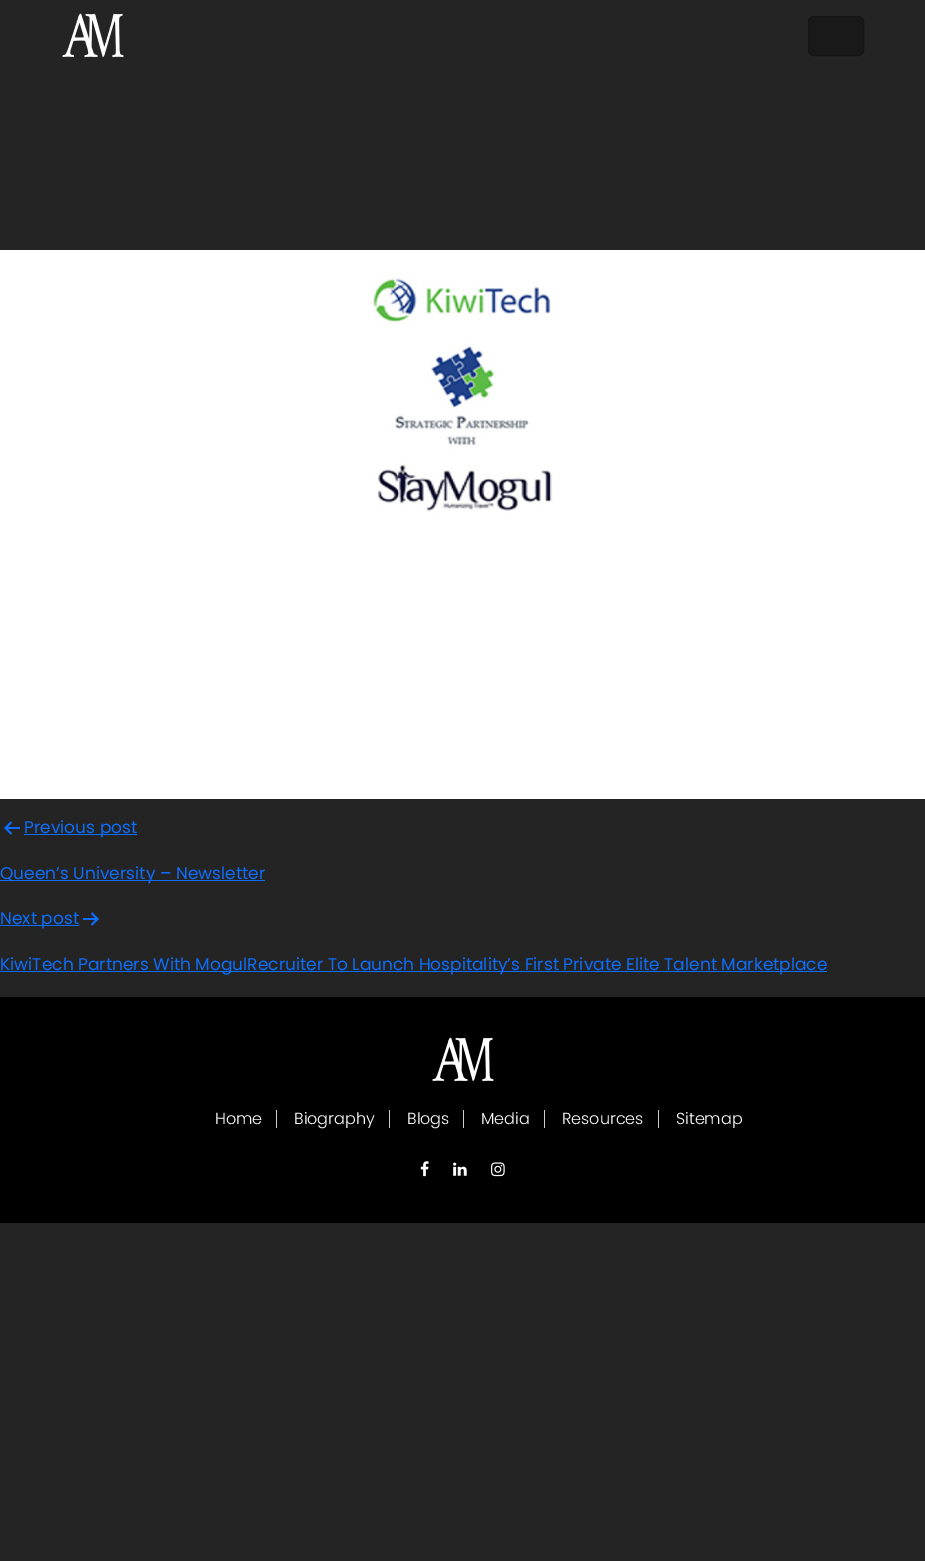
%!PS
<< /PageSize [925 1561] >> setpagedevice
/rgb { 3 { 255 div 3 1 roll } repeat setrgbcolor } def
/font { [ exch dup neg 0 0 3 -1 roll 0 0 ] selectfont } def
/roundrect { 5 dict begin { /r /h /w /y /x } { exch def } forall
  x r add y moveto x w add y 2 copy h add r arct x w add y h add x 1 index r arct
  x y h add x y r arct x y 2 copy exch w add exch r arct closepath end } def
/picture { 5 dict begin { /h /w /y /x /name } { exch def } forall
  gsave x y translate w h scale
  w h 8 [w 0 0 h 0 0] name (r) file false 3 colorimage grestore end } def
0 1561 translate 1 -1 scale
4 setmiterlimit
36 36 36 rgb
0 0 925 1561 rectfill
(img/1.rgb) 62 13 62 45 picture
25 25 25 rgb
808.5 16.5 55 39 5.5 roundrect gsave fill grestore
21 21 21 rgb
stroke
(img/2.rgb) 0 250 925 549 picture
(img/3.rgb) 4 821 16 14 picture
[
  [24 834 113 1 13 110 253]
  [0 880 265 1 13 110 253]
  [0 925 79 1 13 110 253]
] { aload pop rgb rectfill } forall
(img/4.rgb) 83 912 16 14 picture
0 971 827 1 rectfill
0 0 0 rgb
0 997 925 226 rectfill
(img/5.rgb) 432 1037 62 45 picture
[
  [276 1110 1 18 204 204 204]
  [389 1110 1 18 204 204 204]
  [463 1110 1 18 204 204 204]
  [544 1110 1 18 204 204 204]
  [658 1110 1 18 204 204 204]
] { aload pop rgb rectfill } forall
(img/6.rgb) 420 1161 9 16 picture
(img/7.rgb) 453 1162 14 14 picture
(img/8.rgb) 491 1162 14 15 picture
/Poppins-Regular 17 font
13 110 253 rgb
[
  [(Previous post) 24 833]
  [(Queen’s University – Newsletter) 0 879]
  [(Next post) 0 924]
  [(KiwiTech Partners With MogulRecruiter To Launch Hospitality’s First Private Elite Talent Marketplace) 0 970]
] { aload pop moveto show } forall
/Poppins-Light 16 font
255 255 255 rgb
[
  [(Home) 215 1124]
  [(Biography) 294 1124]
  [(Blogs) 407 1124]
  [(Media) 481 1124]
  [(Resources) 562 1124]
  [(Sitemap) 676 1124]
] { aload pop moveto show } forall
showpage
